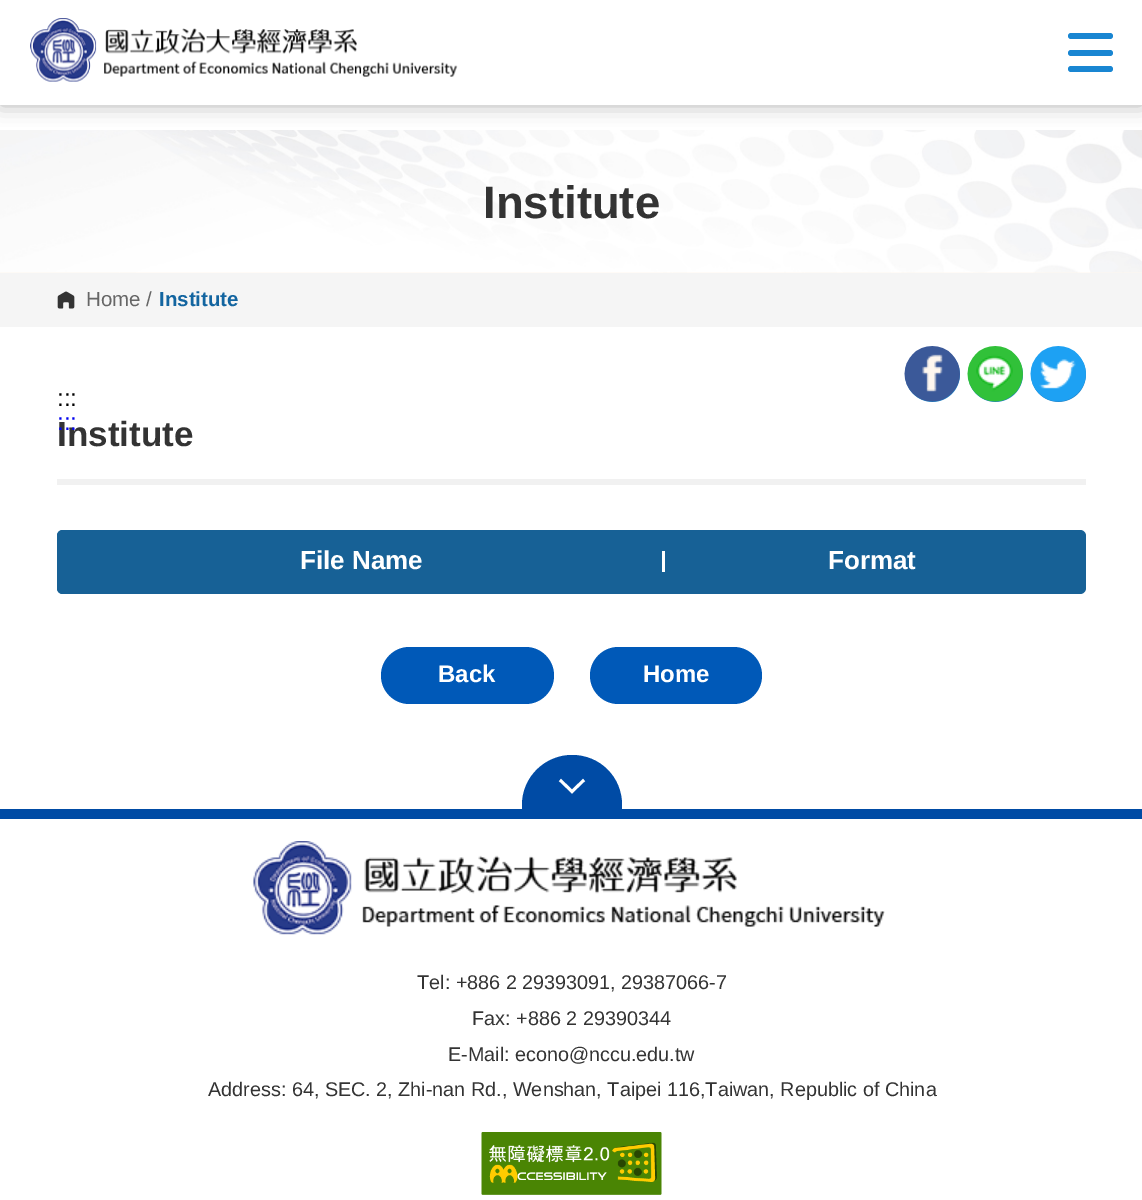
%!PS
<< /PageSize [1142 1200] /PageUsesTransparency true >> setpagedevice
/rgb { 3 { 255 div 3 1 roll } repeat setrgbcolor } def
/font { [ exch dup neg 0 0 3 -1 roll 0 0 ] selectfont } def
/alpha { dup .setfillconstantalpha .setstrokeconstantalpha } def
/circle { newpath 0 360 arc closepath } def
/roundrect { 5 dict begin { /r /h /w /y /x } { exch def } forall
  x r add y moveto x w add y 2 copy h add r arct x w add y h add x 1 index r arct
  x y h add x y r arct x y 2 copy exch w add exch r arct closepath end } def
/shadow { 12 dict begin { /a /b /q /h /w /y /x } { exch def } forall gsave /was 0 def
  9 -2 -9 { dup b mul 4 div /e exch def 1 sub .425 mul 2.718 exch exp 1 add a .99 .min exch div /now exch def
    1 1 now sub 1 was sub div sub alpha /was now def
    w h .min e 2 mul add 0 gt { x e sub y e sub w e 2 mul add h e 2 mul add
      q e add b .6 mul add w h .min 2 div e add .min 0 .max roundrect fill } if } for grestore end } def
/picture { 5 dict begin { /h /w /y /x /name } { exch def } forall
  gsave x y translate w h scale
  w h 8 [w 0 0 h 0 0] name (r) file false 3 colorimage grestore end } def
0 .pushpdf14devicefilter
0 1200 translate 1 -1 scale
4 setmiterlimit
255 255 255 rgb
0 0 1142 1200 rectfill
254 247 239 rgb
0 272 1142 1 rectfill
(img/2.rgb) 0 130 1142 143 picture
gsave
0 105 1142 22 rectclip
177 177 177 rgb
0 0 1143 105 0 10.5 1 shadow
grestore
(img/1.rgb) 30 18 428 64 picture
25 134 210 rgb
1068 33 45 6 3 roundrect fill
1068 50 45 6 3 roundrect fill
1068 66 45 6 3 roundrect fill
245 245 245 rgb
0 273 1142 54 rectfill
(img/3.rgb) 57 291 18 18 picture
241 241 241 rgb
57 479 1029 6 rectfill
33 128 196 rgb
932.5 374.5 27.5 circle fill
(img/4.rgb) 904 346 56 56 picture
995.5 374.5 27.5 circle fill
(img/5.rgb) 967 346 56 56 picture
1058.5 374.5 27.5 circle fill
(img/6.rgb) 1030 346 56 56 picture
23 97 150 rgb
57 530 1029 64 6 roundrect fill
63 530 moveto 665 530 lineto 665 594 lineto 63 594 lineto 59.5 594 57 591.5 57 588 curveto 57 536 lineto 57 532.5 59.5 530 63 530 curveto closepath fill
255 255 255 rgb
662 551 3 21 rectfill
0 89 184 rgb
381 647 173 57 28.5 roundrect fill
590 647 172 57 28.5 roundrect fill
0 75 165 rgb
0 809 1142 10 rectfill
gsave
522 755 101 55 rectclip
622 805 moveto 622 777 600 755 572 755 curveto 545 755 522 777 522 805 curveto 522 811 lineto 622 811 lineto closepath fill
grestore
255 255 255 rgb
2.9 setlinewidth
584 780 moveto 572 791.5 lineto 560 780 lineto stroke
(img/7.rgb) 253 841 632 94 picture
(img/8.rgb) 481 1132 181 63 picture
/LiberationSans-Bold 45.5 font
51 51 51 rgb
483 218 moveto (Institute) show
/LiberationSans-Regular 20.5 font
102 102 102 rgb
86 306 moveto (Home /) show
/LiberationSans-Bold 20.5 font
19 101 160 rgb
159 306 moveto (Institute) show
/LiberationSans-Regular 24 font
0 0 0 rgb
57 406 moveto (:::) show
/LiberationSans-Bold 35 font
51 51 51 rgb
57 446 moveto (Institute) show
/LiberationSans-Regular 24 font
0 0 238 rgb
57 430 moveto (:::) show
/LiberationSans-Bold 26 font
255 255 255 rgb
300 569 moveto (File Name) show
828 569 moveto (Format) show
/LiberationSans-Bold 24 font
438 682 moveto (Back) show
643 682 moveto (Home) show
/LiberationSans-Regular 19.8 font
51 51 51 rgb
[
  [(Tel: +886 2 29393091, 29387066-7) 417 989]
  [(Fax: +886 2 29390344) 472 1025]
  [(E-Mail: econo@nccu.edu.tw) 448 1061]
  [(Address: 64, SEC. 2, Zhi-nan Rd., Wenshan, Taipei 116,Taiwan, Republic of China) 208 1096]
] { aload pop moveto show } forall
.poppdf14devicefilter showpage
